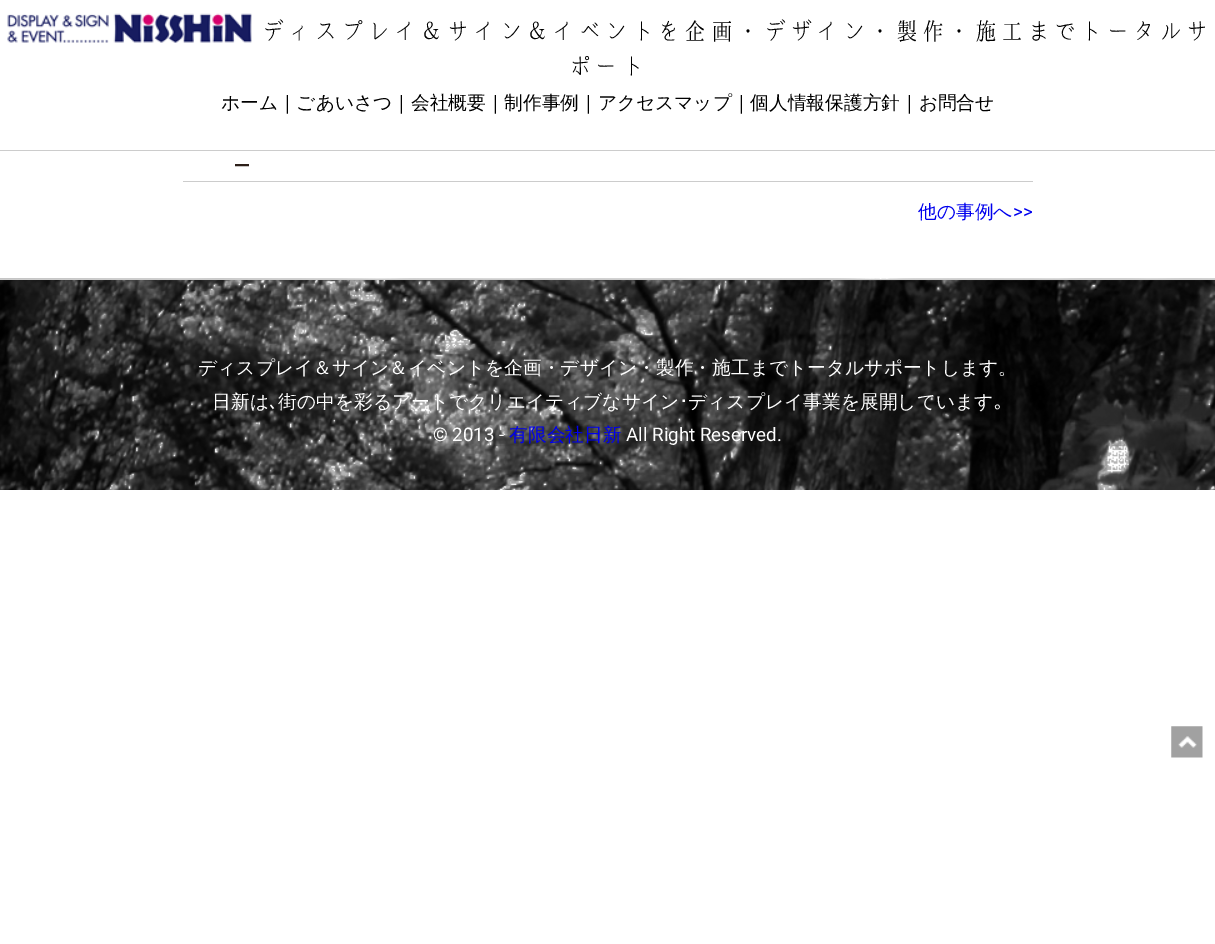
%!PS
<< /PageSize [1215 944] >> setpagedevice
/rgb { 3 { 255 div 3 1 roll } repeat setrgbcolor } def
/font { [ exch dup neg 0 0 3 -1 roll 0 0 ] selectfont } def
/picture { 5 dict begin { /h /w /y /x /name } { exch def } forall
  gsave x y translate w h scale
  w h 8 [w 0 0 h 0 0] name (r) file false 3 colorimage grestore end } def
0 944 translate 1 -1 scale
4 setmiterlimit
255 255 255 rgb
0 0 1215 944 rectfill
(img/1.rgb) 7 13 245 30 picture
204 204 204 rgb
0 150 1215 1 rectfill
183 181 850 1 rectfill
(img/2.rgb) 0 278 1215 212 picture
0 279 1215 1 rectfill
(img/3.rgb) 1171 726 32 32 picture
/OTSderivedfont-Regular 24 font
0 0 0 rgb
261 40 moveto 2.4 0 (ディスプレイ＆サイン＆イベントを企画・デザイン・製作・施工までトータルサ) ashow
568 75 moveto 2.4 0 (ポート) ashow
/WenQuanYiZenHei-Medium 18.75 font
221 109 moveto (ホーム｜ごあいさつ｜会社概要｜制作事例｜アクセスマップ｜個人情報保護方針｜お問合せ) show
/Roboto-Regular 31 font
44 31 25 rgb
235 164 moveto (_) show
/WenQuanYiZenHei-Medium 18.75 font
0 0 238 rgb
918 218 moveto (他の事例へ) show
/Roboto-Regular 18.75 font
1013 218 moveto (>>) show
/WenQuanYiZenHei-Medium 18.75 font
255 255 255 rgb
[
  [(ディスプレイ＆サイン＆イベントを企画・デザイン・製作・施工までトータルサポートします。) 198 374]
  [(日新は) 212 408]
  [(街の中を彩るアートでクリエイティブなサイン) 278 408]
] { aload pop moveto show } forall
/IPAPGothic-Regular 18.75 font
679 408 moveto (･) show
/WenQuanYiZenHei-Medium 18.75 font
688 408 moveto (ディスプレイ事業を展開しています) show
/IPAPGothic-Regular 18.75 font
269 408 moveto (､) show
994 408 moveto (｡) show
/Roboto-Regular 18.75 font
433 441 moveto (© 2013 -) show
/WenQuanYiZenHei-Medium 18.75 font
0 0 238 rgb
509 441 moveto (有限会社日新) show
/Roboto-Regular 18.75 font
255 255 255 rgb
626 441 moveto (All Right Reserved.) show
showpage
